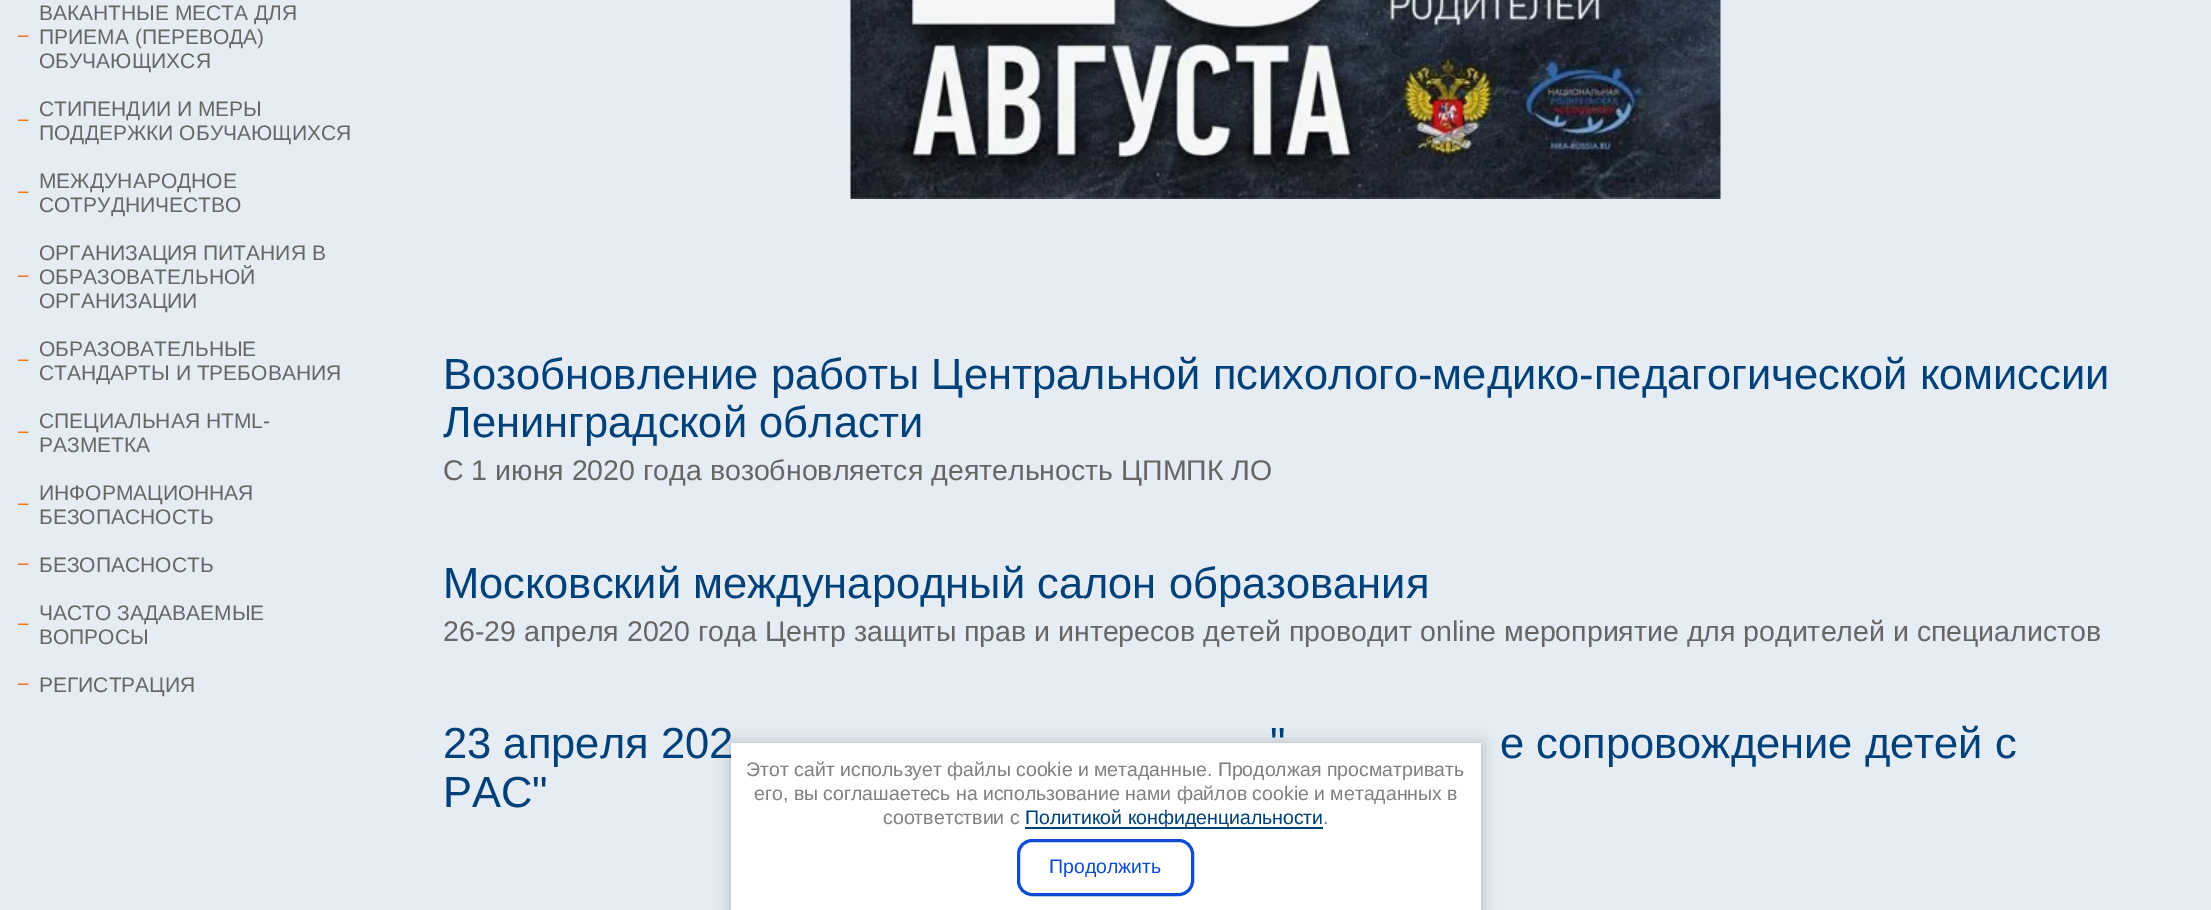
%!PS
<< /PageSize [2211 910] /PageUsesTransparency true >> setpagedevice
/rgb { 3 { 255 div 3 1 roll } repeat setrgbcolor } def
/font { [ exch dup neg 0 0 3 -1 roll 0 0 ] selectfont } def
/alpha { dup .setfillconstantalpha .setstrokeconstantalpha } def
/roundrect { 5 dict begin { /r /h /w /y /x } { exch def } forall
  x r add y moveto x w add y 2 copy h add r arct x w add y h add x 1 index r arct
  x y h add x y r arct x y 2 copy exch w add exch r arct closepath end } def
/shadow { 12 dict begin { /a /b /q /h /w /y /x } { exch def } forall gsave /was 0 def
  9 -2 -9 { dup b mul 4 div /e exch def 1 sub .425 mul 2.718 exch exp 1 add a .99 .min exch div /now exch def
    1 1 now sub 1 was sub div sub alpha /was now def
    w h .min e 2 mul add 0 gt { x e sub y e sub w e 2 mul add h e 2 mul add
      q e add b .6 mul add w h .min 2 div e add .min 0 .max roundrect fill } if } for grestore end } def
/picture { 5 dict begin { /h /w /y /x /name } { exch def } forall
  gsave x y translate w h scale
  w h 8 [w 0 0 h 0 0] name (r) file false 3 colorimage grestore end } def
0 .pushpdf14devicefilter
0 910 translate 1 -1 scale
4 setmiterlimit
229 236 244 rgb
0 0 2211 910 rectfill
(img/1.rgb) 18 35 11 2 picture
(img/1.rgb) 18 119 11 2 picture
(img/1.rgb) 18 191 11 2 picture
(img/1.rgb) 18 275 11 2 picture
(img/1.rgb) 18 359 11 2 picture
(img/1.rgb) 18 431 11 2 picture
(img/1.rgb) 18 503 11 2 picture
(img/1.rgb) 18 563 11 2 picture
(img/1.rgb) 18 623 11 2 picture
(img/1.rgb) 18 683 11 2 picture
(img/2.rgb) 850 0 871 199 picture
0 0 0 rgb
731 744 750 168 0 7.5 0.23 shadow
255 255 255 rgb
731 743 750 167 rectfill
0 64 121 rgb
1025 827 298 2 rectfill
13 76 211 rgb
3 setlinewidth
1018.5 840.5 174 54 13.5 roundrect stroke
/LiberationSans-Regular 21 font
102 102 102 rgb
[
  [(ВАКАНТНЫЕ МЕСТА ДЛЯ) 39 20]
  [(ПРИЕМА \(ПЕРЕВОДА\)) 39 44]
  [(ОБУЧАЮЩИХСЯ) 39 68]
  [(СТИПЕНДИИ И МЕРЫ) 39 116]
  [(ПОДДЕРЖКИ ОБУЧАЮЩИХСЯ) 39 140]
  [(МЕЖДУНАРОДНОЕ) 39 188]
  [(СОТРУДНИЧЕСТВО) 39 212]
  [(ОРГАНИЗАЦИЯ ПИТАНИЯ В) 39 260]
  [(ОБРАЗОВАТЕЛЬНОЙ) 39 284]
  [(ОРГАНИЗАЦИИ) 39 308]
  [(ОБРАЗОВАТЕЛЬНЫЕ) 39 356]
  [(СТАНДАРТЫ И ТРЕБОВАНИЯ) 39 380]
  [(СПЕЦИАЛЬНАЯ HTML-) 39 428]
  [(РАЗМЕТКА) 39 452]
  [(ИНФОРМАЦИОННАЯ) 39 500]
  [(БЕЗОПАСНОСТЬ) 39 524]
  [(БЕЗОПАСНОСТЬ) 39 572]
  [(ЧАСТО ЗАДАВАЕМЫЕ) 39 620]
  [(ВОПРОСЫ) 39 644]
  [(РЕГИСТРАЦИЯ) 39 692]
] { aload pop moveto show } forall
/LiberationSans-Regular 43.5 font
0 64 121 rgb
443 389 moveto (Возобновление работы Центральной психолого-медико-педагогической комиссии) show
gsave
443 353 1686 183 rectclip
443 437 moveto (Ленинградской области) show
grestore
/LiberationSans-Regular 28.5 font
102 102 102 rgb
443 480 moveto (С 1 июня 2020 года возобновляется деятельность ЦПМПК ЛО) show
/LiberationSans-Regular 43.5 font
0 64 121 rgb
443 598 moveto (Московский международный салон образования) show
/LiberationSans-Regular 28.5 font
102 102 102 rgb
443 641 moveto (26-29 апреля 2020 года Центр защиты прав и интересов детей проводит online мероприятие для родителей и специалистов) show
/LiberationSans-Regular 43.5 font
0 64 121 rgb
[
  [(23 апреля 202) 443 758]
  [(") 1270 758]
  [(е сопровождение детей с) 1500 758]
  [(РАС") 443 807]
] { aload pop moveto show } forall
/LiberationSans-Regular 19.5 font
128 128 128 rgb
[
  [(Этот сайт использует файлы cookie и метаданные. Продолжая просматривать) 746 776]
  [(его, вы соглашаетесь на использование нами файлов cookie и метаданных в) 754 800]
  [(соответствии с) 883 824]
] { aload pop moveto show } forall
0 64 121 rgb
1025 824 moveto (Политикой конфиденциальности) show
128 128 128 rgb
1323 824 moveto (.) show
13 76 211 rgb
1049 873 moveto (Продолжить) show
.poppdf14devicefilter showpage
